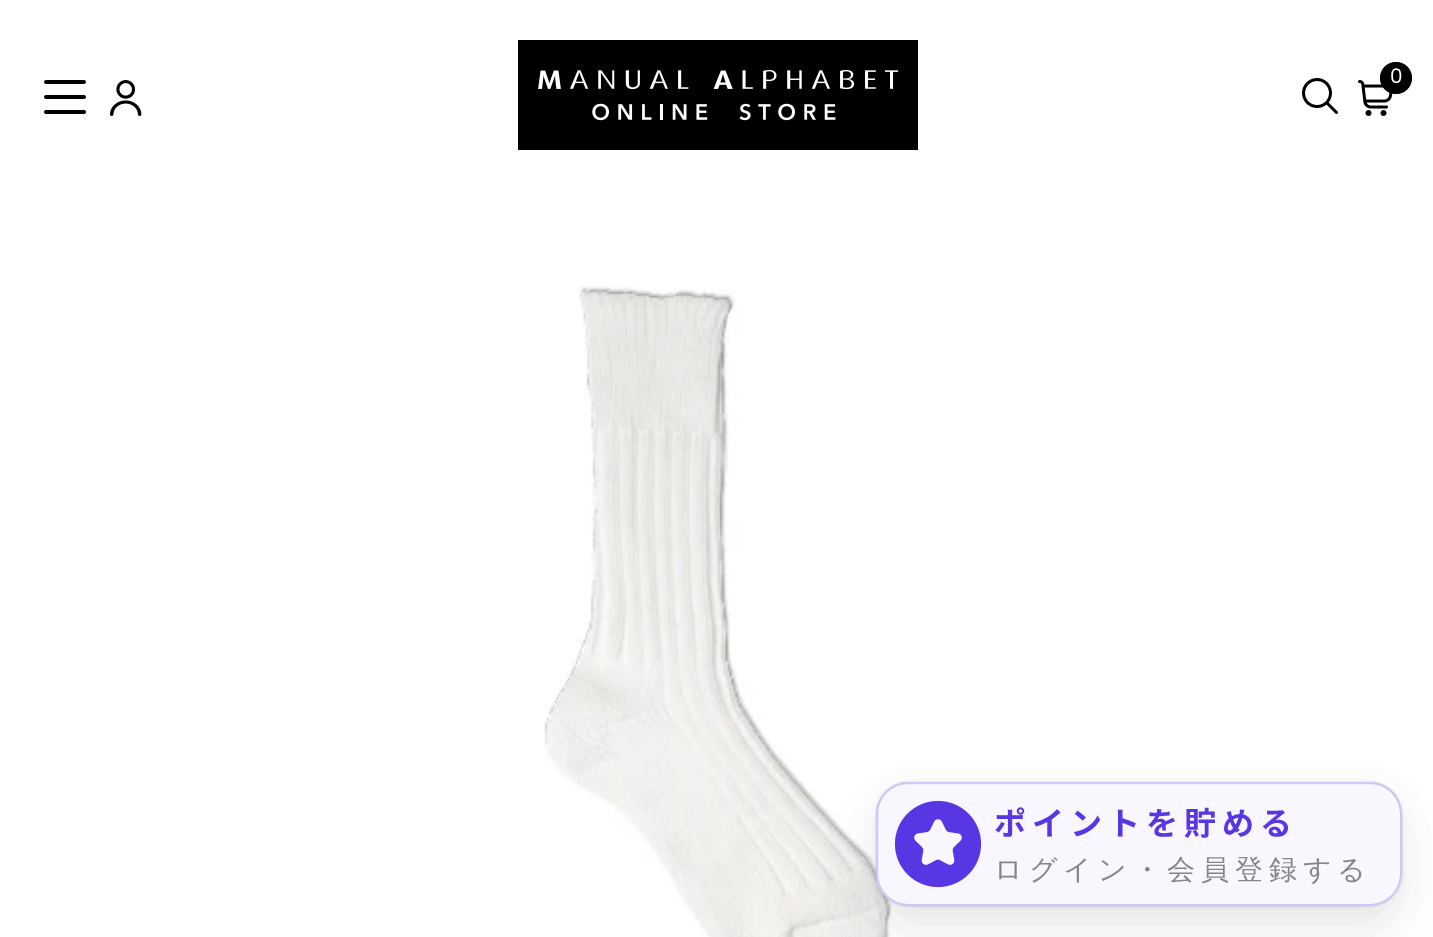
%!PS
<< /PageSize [1433 937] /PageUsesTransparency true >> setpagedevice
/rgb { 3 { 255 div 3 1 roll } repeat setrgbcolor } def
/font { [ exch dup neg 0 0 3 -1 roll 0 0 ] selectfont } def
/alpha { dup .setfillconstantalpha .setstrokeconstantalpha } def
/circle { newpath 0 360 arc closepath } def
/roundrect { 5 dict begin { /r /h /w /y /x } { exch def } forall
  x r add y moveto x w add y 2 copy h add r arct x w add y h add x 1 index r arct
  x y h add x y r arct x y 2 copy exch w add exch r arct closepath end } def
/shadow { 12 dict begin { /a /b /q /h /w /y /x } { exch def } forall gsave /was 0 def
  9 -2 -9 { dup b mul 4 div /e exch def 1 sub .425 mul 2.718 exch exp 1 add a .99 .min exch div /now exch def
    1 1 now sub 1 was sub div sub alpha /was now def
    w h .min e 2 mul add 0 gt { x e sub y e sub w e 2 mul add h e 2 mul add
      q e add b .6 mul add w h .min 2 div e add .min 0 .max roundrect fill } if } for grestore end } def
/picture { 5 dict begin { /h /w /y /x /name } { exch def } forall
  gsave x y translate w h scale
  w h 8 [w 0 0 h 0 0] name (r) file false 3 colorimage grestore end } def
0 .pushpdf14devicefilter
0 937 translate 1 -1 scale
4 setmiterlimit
255 255 255 rgb
0 0 1433 937 rectfill
(img/1.rgb) 518 40 400 110 picture
(img/2.rgb) 1358 80 35 36 picture
0 0 0 rgb
1396 78 16 circle fill
(img/3.rgb) 1302 78 36 36 picture
(img/4.rgb) 44 80 42 34 picture
(img/5.rgb) 110 80 32 36 picture
(img/6.rgb) 544 286 348 651 picture
876 790 526 124 32 16 0.05 shadow
17 24 38 rgb
896 834 486 84 12 32 0.1 shadow
0 0 0 rgb
876 782 526 124 32 1 0.15 shadow
248 247 254 rgb
876 782 526 124 32 roundrect fill
0.25 alpha
89 54 227 rgb
2 setlinewidth
877 783 524 122 31 roundrect stroke
1 alpha
(img/7.rgb) 894 800 88 88 picture
/Poppins-Regular 20 font
255 255 255 rgb
1390 83 moveto (0) show
/NotoSansJP-Bold 32 font
89 54 227 rgb
994 835 moveto 6 0 (ポイントを貯める) ashow
/WenQuanYiZenHei-Medium 28 font
134 134 138 rgb
994 879 moveto 6 0 (ログイン・会員登録する) ashow
.poppdf14devicefilter showpage
